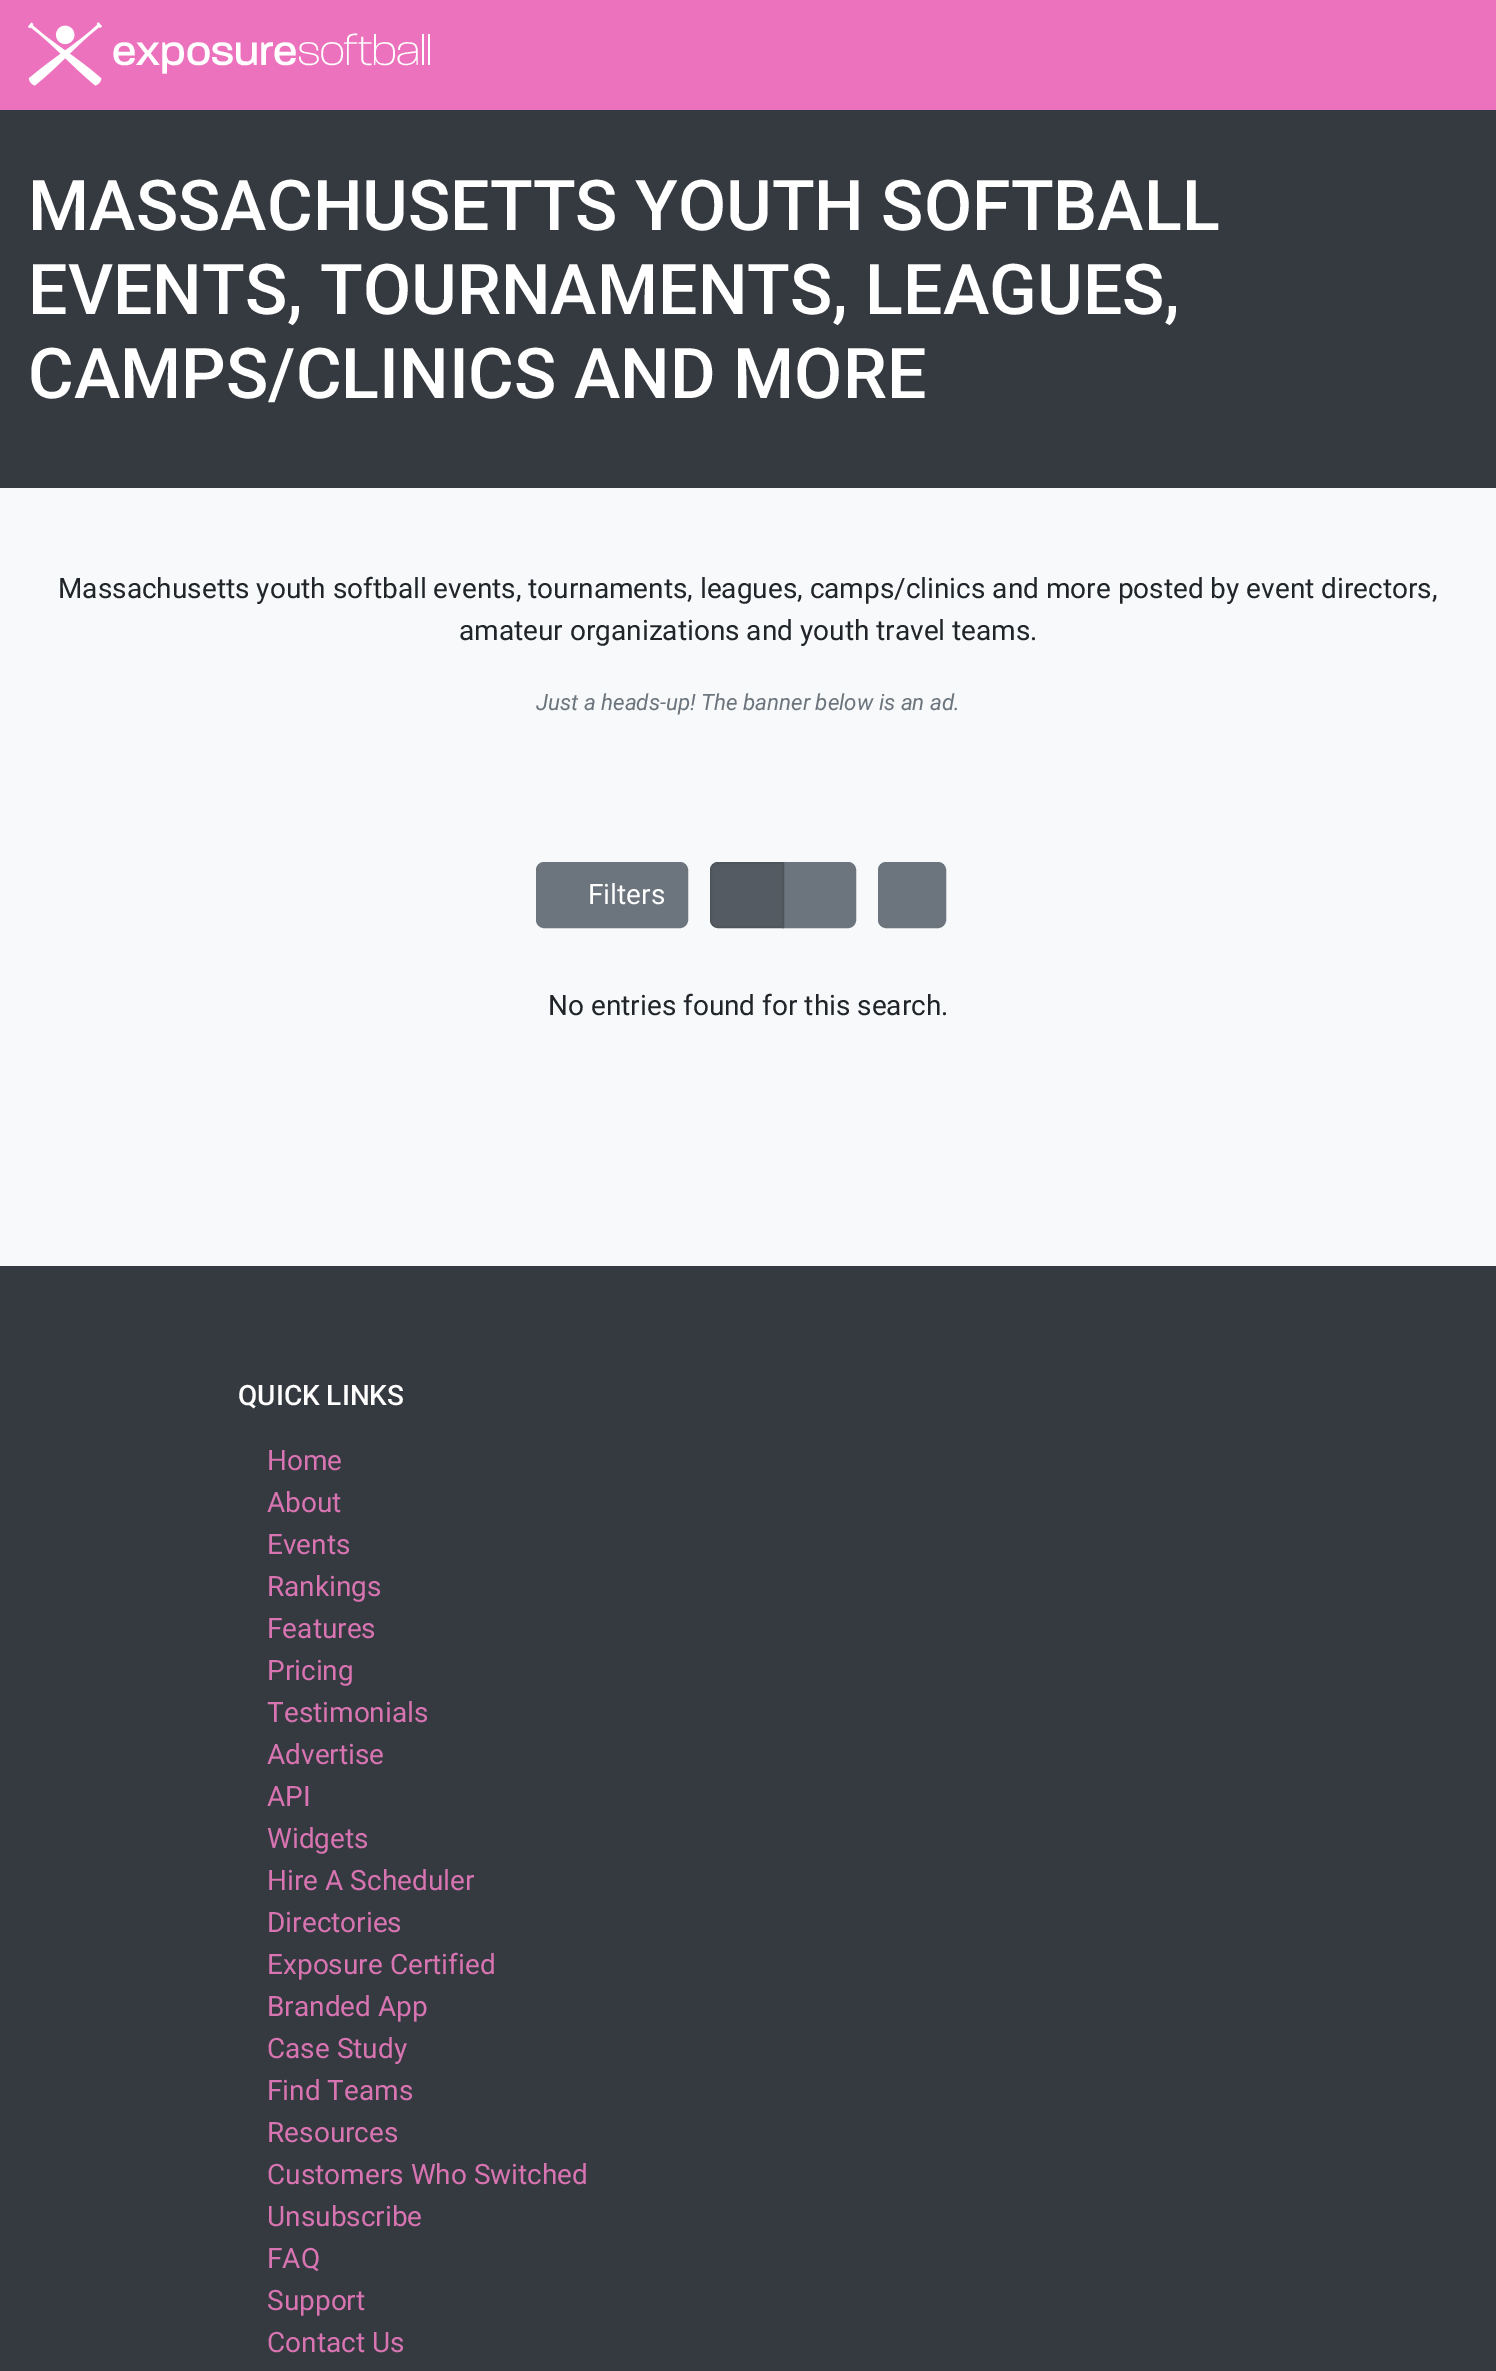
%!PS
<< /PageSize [1496 2371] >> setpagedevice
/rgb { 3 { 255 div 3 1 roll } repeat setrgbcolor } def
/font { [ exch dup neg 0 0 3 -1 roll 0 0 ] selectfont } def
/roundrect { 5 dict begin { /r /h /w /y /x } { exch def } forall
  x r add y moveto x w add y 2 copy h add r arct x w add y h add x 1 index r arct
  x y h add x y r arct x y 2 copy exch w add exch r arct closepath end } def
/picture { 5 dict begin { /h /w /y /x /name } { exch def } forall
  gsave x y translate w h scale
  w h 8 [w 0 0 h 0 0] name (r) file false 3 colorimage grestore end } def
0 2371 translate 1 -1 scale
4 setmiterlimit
248 249 250 rgb
0 0 1496 2371 rectfill
237 114 190 rgb
0 0 1496 110 rectfill
(img/1.rgb) 28 22 74 64 picture
52 58 64 rgb
0 110 1496 378 rectfill
108 117 125 rgb
537 863 150 64 7 roundrect gsave fill grestore
2 setlinewidth
stroke
783 863 moveto 848 863 lineto 852 863 855 866 855 870 curveto 855 920 lineto 855 924 852 927 848 927 curveto 783 927 lineto closepath gsave fill grestore
stroke
84 91 98 rgb
718 863 moveto 783 863 lineto 783 927 lineto 718 927 lineto 714 927 711 924 711 920 curveto 711 870 lineto 711 866 714 863 718 863 curveto closepath gsave fill grestore
78 85 91 rgb
stroke
108 117 125 rgb
879 863 66 64 7 roundrect gsave fill grestore
stroke
52 58 64 rgb
0 1266 1496 1105 rectfill
/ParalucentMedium-Medium 44 font
255 255 255 rgb
112 65 moveto (exposure) show
/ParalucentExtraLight-ExtraLight 44 font
298 65 moveto (softball) show
/Roboto-Medium 70 font
[
  [(MASSACHUSETTS YOUTH SOFTBALL) 28 230]
  [(EVENTS, TOURNAMENTS, LEAGUES,) 28 314]
  [(CAMPS/CLINICS AND MORE) 28 398]
] { aload pop moveto show } forall
/Roboto-Regular 28 font
33 37 41 rgb
58 598 moveto (Massachusetts youth softball events, tournaments, leagues, camps/clinics and more posted by event directors,) show
459 640 moveto (amateur organizations and youth travel teams.) show
/Roboto-Italic 22.4 font
108 117 125 rgb
536 710 moveto (Just a heads-up! The banner below is an ad.) show
/Roboto-Regular 28 font
255 255 255 rgb
588 904 moveto (Filters) show
33 37 41 rgb
548 1015 moveto (No entries found for this search.) show
/Roboto-Medium 28 font
255 255 255 rgb
238 1405 moveto (QUICK LINKS) show
/Roboto-Regular 28 font
217 116 178 rgb
[
  [(Home) 267 1470]
  [(About) 267 1512]
  [(Events) 267 1554]
  [(Rankings) 267 1596]
  [(Features) 267 1638]
  [(Pricing) 267 1680]
  [(Testimonials) 267 1722]
  [(Advertise) 267 1764]
  [(API) 267 1806]
  [(Widgets) 267 1848]
  [(Hire A Scheduler) 267 1890]
  [(Directories) 267 1932]
  [(Exposure Certified) 267 1974]
  [(Branded App) 267 2016]
  [(Case Study) 267 2058]
  [(Find Teams) 267 2100]
  [(Resources) 267 2142]
  [(Customers Who Switched) 267 2184]
  [(Unsubscribe) 267 2226]
  [(FAQ) 267 2268]
  [(Support) 267 2310]
  [(Contact Us) 267 2352]
] { aload pop moveto show } forall
showpage
